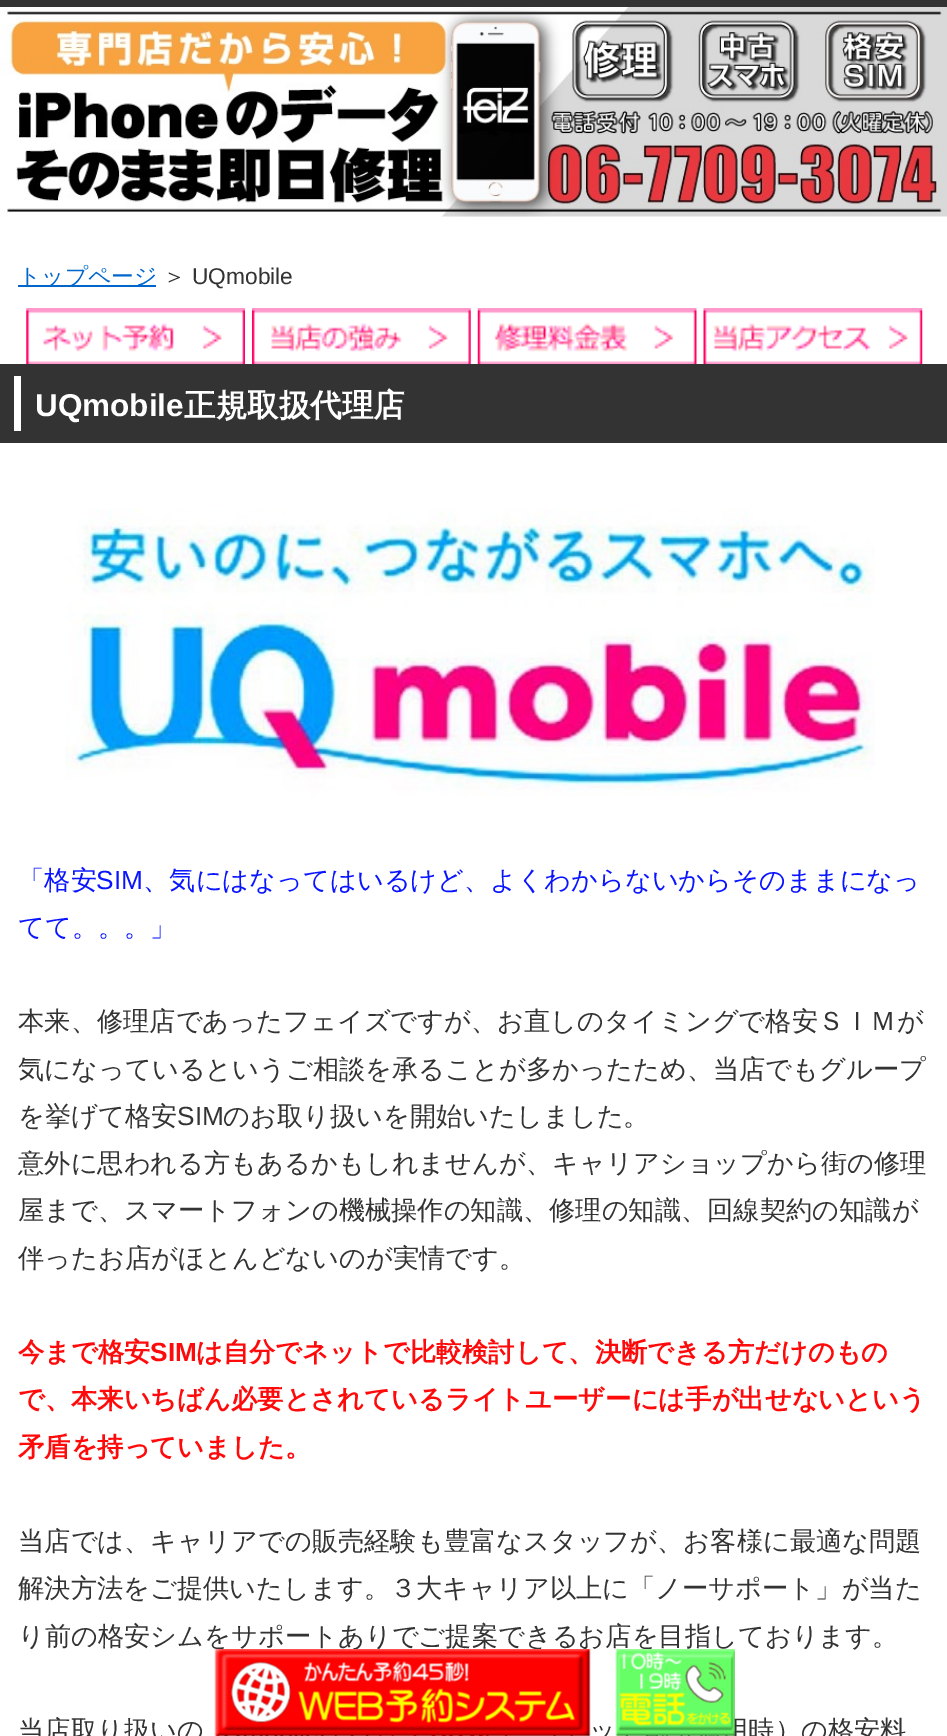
%!PS
<< /PageSize [947 1736] >> setpagedevice
/rgb { 3 { 255 div 3 1 roll } repeat setrgbcolor } def
/font { [ exch dup neg 0 0 3 -1 roll 0 0 ] selectfont } def
/picture { 5 dict begin { /h /w /y /x /name } { exch def } forall
  gsave x y translate w h scale
  w h 8 [w 0 0 h 0 0] name (r) file false 3 colorimage grestore end } def
0 1736 translate 1 -1 scale
4 setmiterlimit
51 51 51 rgb
0 0 947 1736 rectfill
(img/1.rgb) 0 7 947 210 picture
255 255 255 rgb
0 217 947 1519 rectfill
0 102 204 rgb
18 285 138 2 rectfill
(img/2.rgb) 26 308 219 56 picture
(img/3.rgb) 252 308 219 56 picture
(img/4.rgb) 477 308 220 56 picture
(img/5.rgb) 703 308 220 56 picture
51 51 51 rgb
0 364 947 79 rectfill
255 255 255 rgb
14 376 7 55 rectfill
(img/6.rgb) 65 509 810 288 picture
/WenQuanYiZenHei-Medium 22.75 font
0 102 204 rgb
18 284 moveto (トップページ) show
51 51 51 rgb
163 284 moveto (＞) show
/LiberationSans-Regular 22.75 font
192 284 moveto (UQmobile) show
/LiberationSans-Bold 31.5 font
255 255 255 rgb
35 416 moveto (UQmobile) show
/WenQuanYiZenHei-Bold 31.5 font
184 416 moveto (正規取扱代理店) show
/WenQuanYiZenHei-Medium 26.25 font
10 21 255 rgb
18 889 moveto (「格安) show
/LiberationSans-Regular 26.25 font
96 889 moveto (SIM) show
/WenQuanYiZenHei-Medium 26.25 font
143 889 moveto (、気にはなってはいるけど、よくわからないからそのままになっ) show
18 936 moveto (てて。。。」) show
51 51 51 rgb
[
  [(本来、修理店であったフェイズですが、お直しのタイミングで格安ＳＩＭが) 18 1030]
  [(気になっているというご相談を承ることが多かったため、当店でもグループ) 18 1078]
  [(を挙げて格安) 18 1125]
] { aload pop moveto show } forall
/LiberationSans-Regular 26.25 font
177 1125 moveto (SIM) show
/WenQuanYiZenHei-Medium 26.25 font
[
  [(のお取り扱いを開始いたしました。) 223 1125]
  [(意外に思われる方もあるかもしれませんが、キャリアショップから街の修理) 18 1172]
  [(屋まで、スマートフォンの機械操作の知識、修理の知識、回線契約の知識が) 18 1219]
  [(伴ったお店がほとんどないのが実情です。) 18 1267]
] { aload pop moveto show } forall
/WenQuanYiZenHei-Bold 26.25 font
255 10 10 rgb
18 1361 moveto (今まで格安) show
/LiberationSans-Bold 26.25 font
150 1361 moveto (SIM) show
/WenQuanYiZenHei-Bold 26.25 font
[
  [(は自分でネットで比較検討して、決断できる方だけのもの) 196 1361]
  [(で、本来いちばん必要とされているライトユーザーには手が出せないという) 18 1408]
  [(矛盾を持っていました。) 18 1456]
] { aload pop moveto show } forall
/WenQuanYiZenHei-Medium 26.25 font
51 51 51 rgb
[
  [(当店では、キャリアでの販売経験も豊富なスタッフが、お客様に最適な問題) 18 1550]
  [(解決方法をご提供いたします。３大キャリア以上に「ノーサポート」が当た) 18 1597]
  [(り前の格安シムをサポートありでご提案できるお店を目指しております。) 18 1645]
  [(当店取り扱いの) 18 1739]
  [(ッ) 589 1739]
  [(用時）の格安料) 722 1739]
] { aload pop moveto show } forall
(img/7.rgb) 214 1649 377 87 picture
(img/8.rgb) 615 1649 120 87 picture
showpage
